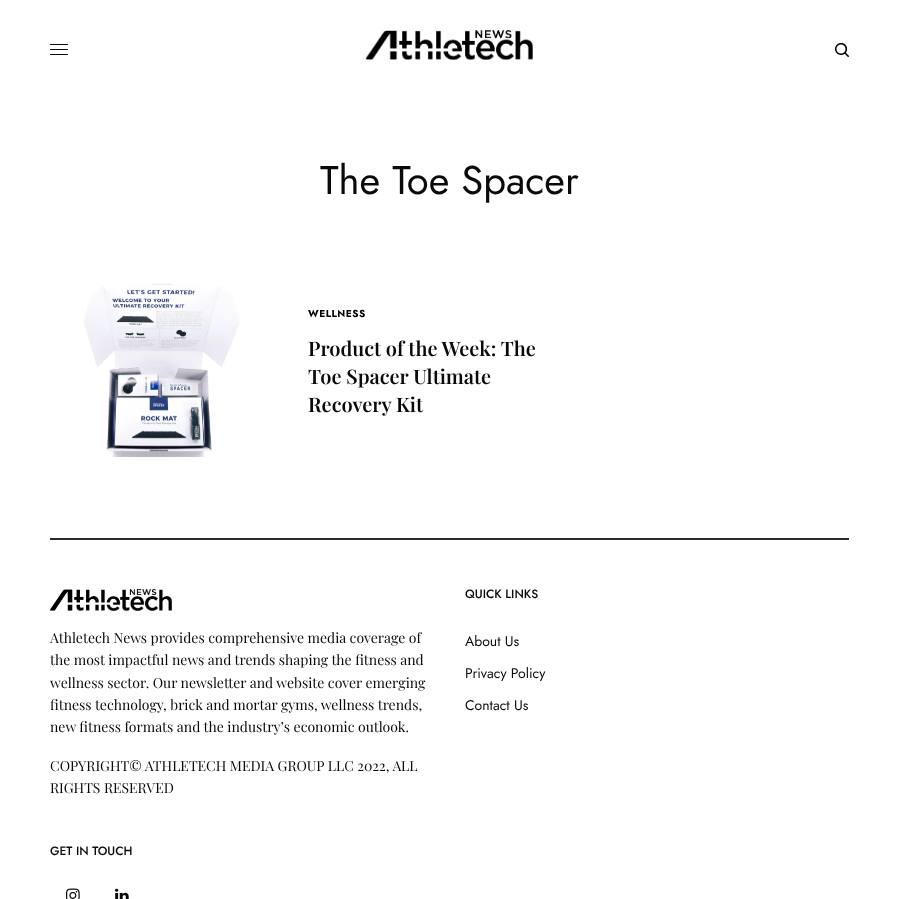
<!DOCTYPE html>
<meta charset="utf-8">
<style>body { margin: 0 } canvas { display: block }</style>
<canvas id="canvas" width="899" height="899"></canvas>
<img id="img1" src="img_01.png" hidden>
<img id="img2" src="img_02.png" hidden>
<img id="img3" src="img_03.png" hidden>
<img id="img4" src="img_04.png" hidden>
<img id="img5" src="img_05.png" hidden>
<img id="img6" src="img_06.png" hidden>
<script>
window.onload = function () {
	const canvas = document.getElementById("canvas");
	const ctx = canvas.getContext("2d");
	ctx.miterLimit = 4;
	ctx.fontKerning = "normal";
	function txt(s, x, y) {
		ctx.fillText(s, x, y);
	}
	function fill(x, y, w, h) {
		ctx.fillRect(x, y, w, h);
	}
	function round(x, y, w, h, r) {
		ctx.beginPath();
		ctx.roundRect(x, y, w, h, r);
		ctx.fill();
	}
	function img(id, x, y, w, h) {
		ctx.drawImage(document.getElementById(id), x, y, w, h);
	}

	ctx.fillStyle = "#FFFFFF";
	fill(0, 0, 899, 899);
	ctx.fillStyle = "#0A0A0A";
	round(50, 44, 18, 1, 0.5);
	round(50, 49, 18, 1, 0.5);
	round(50, 54, 18, 1, 0.5);
	img("img1", 365, 30, 168, 30);
	img("img2", 835, 43, 14, 14);
	img("img3", 50, 280, 218, 177);
	ctx.fillStyle = "#2A2A2A";
	fill(50, 538, 799, 2);
	img("img4", 50, 589, 122, 22);
	img("img5", 66, 888, 14, 11);
	img("img6", 115, 888, 14, 11);
	ctx.font = "40px Jost";
	ctx.fillStyle = "#0A0A0A";
	txt("The Toe Spacer", 320, 194);
	ctx.letterSpacing = "0.5px";
	ctx.font = "bold 10px Jost";
	ctx.fillStyle = "#000000";
	txt("WELLNESS", 308, 317);
	ctx.letterSpacing = "0px";
	ctx.font = "600 20px Playfair Display";
	ctx.fillStyle = "#0A0A0A";
	txt("Product of the Week: The", 308, 356);
	txt("Toe Spacer Ultimate", 308, 384);
	txt("Recovery Kit", 308, 412);
	ctx.font = "14px Playfair Display";
	txt("Athletech News provides comprehensive media coverage of", 50, 643);
	txt("the most impactful news and trends shaping the fitness and", 50, 665);
	txt("wellness sector. Our newsletter and website cover emerging", 50, 688);
	txt("fitness technology, brick and mortar gyms, wellness trends,", 50, 710);
	txt("new fitness formats and the industry’s economic outlook.", 50, 732);
	txt("COPYRIGHT© ATHLETECH MEDIA GROUP LLC 2022, ALL", 50, 771);
	txt("RIGHTS RESERVED", 50, 793);
	ctx.font = "500 12px Jost";
	txt("QUICK LINKS", 465, 598);
	ctx.font = "14px Jost";
	txt("About Us", 465, 646);
	txt("Privacy Policy", 465, 678);
	txt("Contact Us", 465, 710);
	ctx.font = "500 12px Jost";
	txt("GET IN TOUCH", 50, 855);
};
</script>
